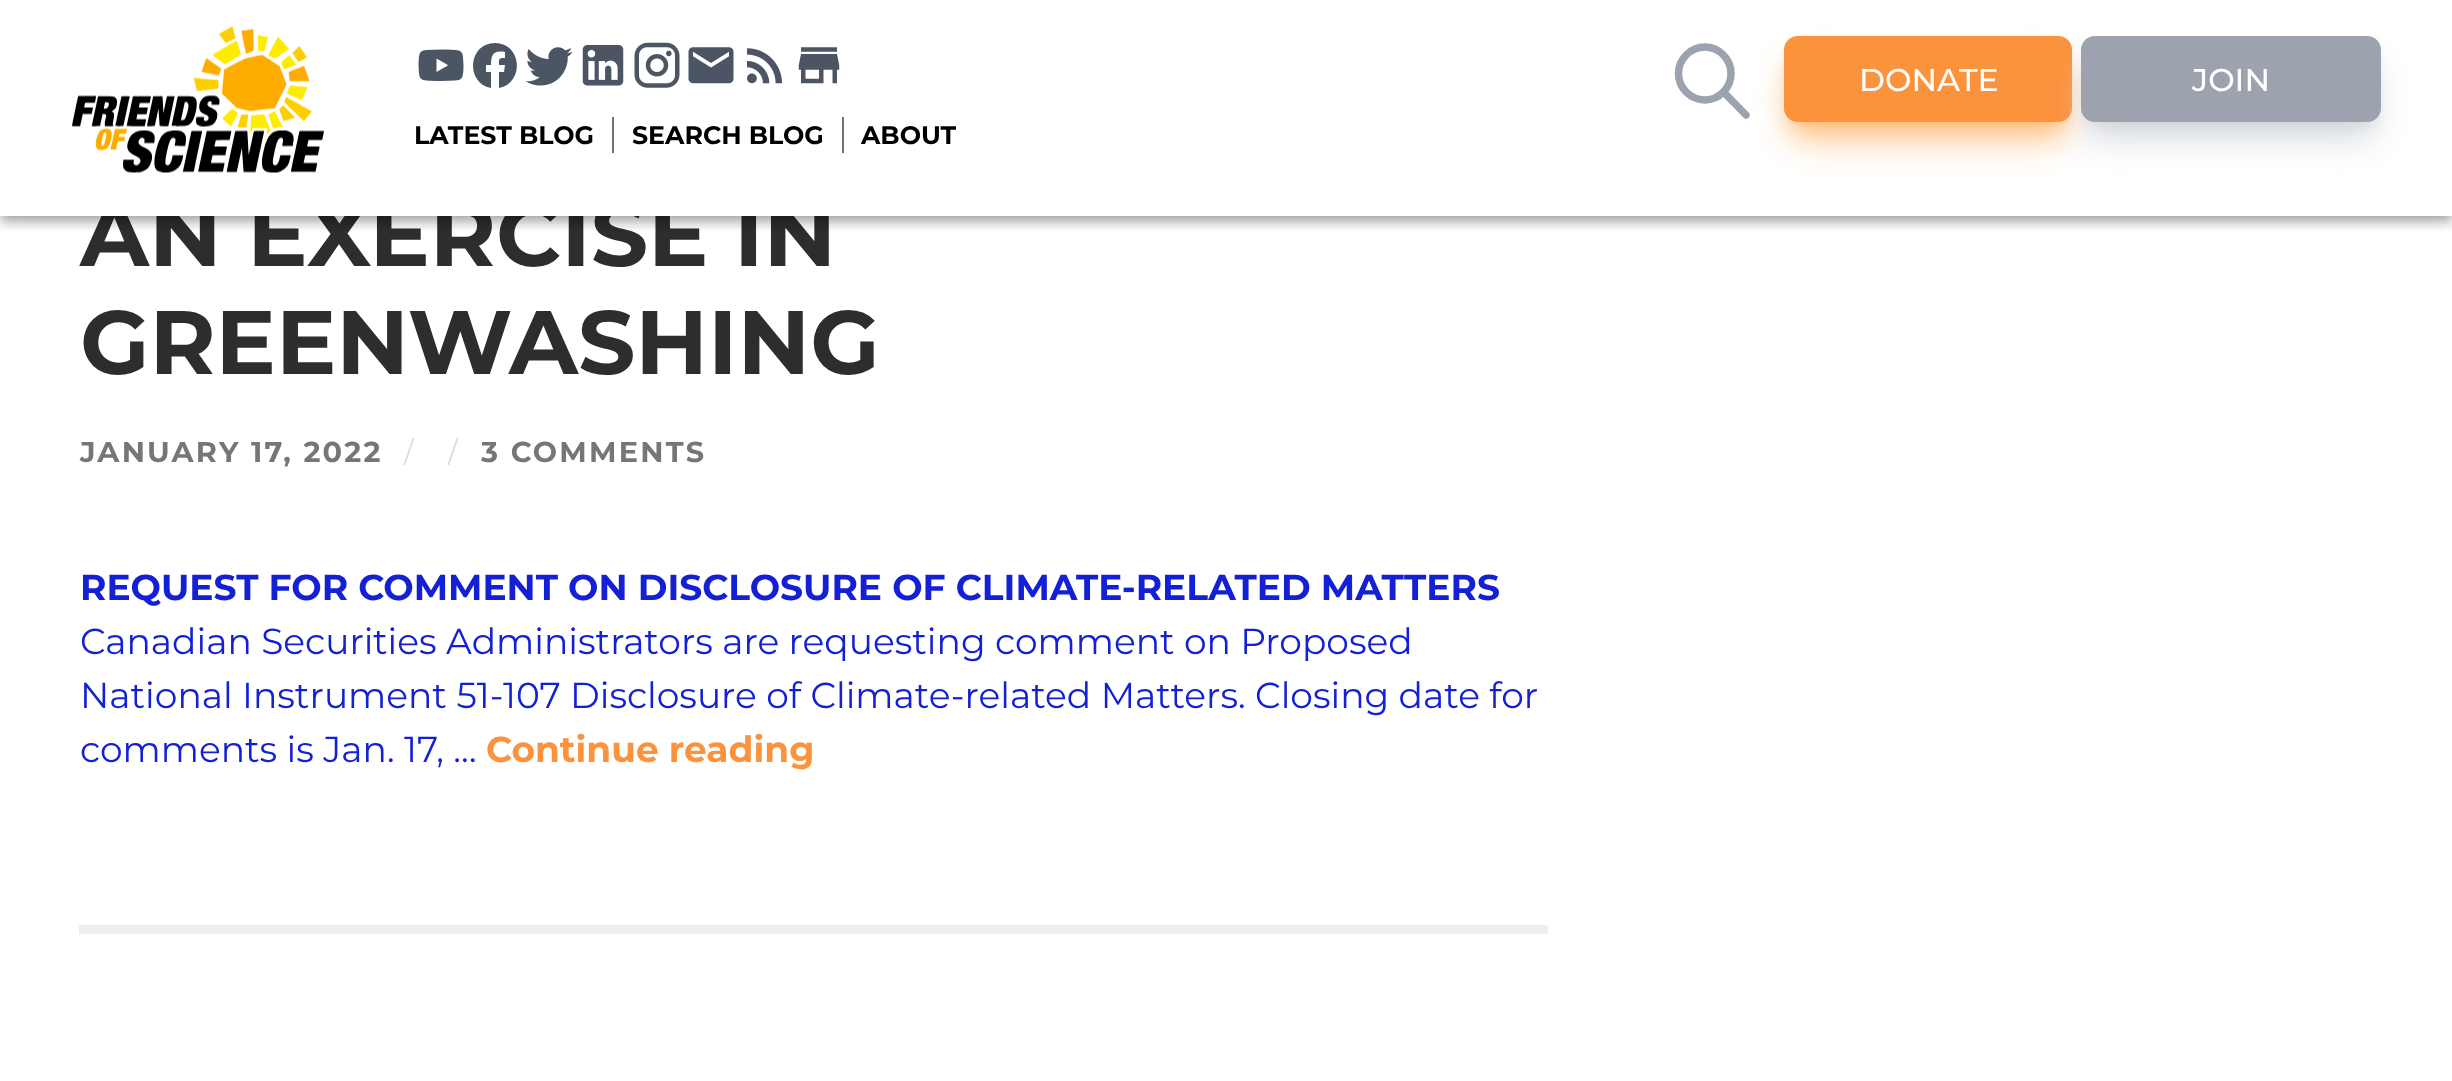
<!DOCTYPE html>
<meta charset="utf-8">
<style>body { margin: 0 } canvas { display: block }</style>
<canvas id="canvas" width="2452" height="1081"></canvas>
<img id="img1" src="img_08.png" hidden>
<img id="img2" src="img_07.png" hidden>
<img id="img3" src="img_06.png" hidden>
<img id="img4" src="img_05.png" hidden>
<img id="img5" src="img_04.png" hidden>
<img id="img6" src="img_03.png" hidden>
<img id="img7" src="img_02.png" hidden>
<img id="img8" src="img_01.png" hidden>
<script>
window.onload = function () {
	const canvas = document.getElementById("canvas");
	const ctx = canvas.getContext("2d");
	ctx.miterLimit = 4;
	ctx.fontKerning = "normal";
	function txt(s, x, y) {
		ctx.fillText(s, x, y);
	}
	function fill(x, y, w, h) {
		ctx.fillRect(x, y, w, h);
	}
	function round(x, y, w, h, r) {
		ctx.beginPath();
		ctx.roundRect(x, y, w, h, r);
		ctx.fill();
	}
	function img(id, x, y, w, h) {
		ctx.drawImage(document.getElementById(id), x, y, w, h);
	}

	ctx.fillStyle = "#FFFFFF";
	fill(0, 0, 2452, 1081);
	ctx.fillStyle = "#FDBA74";
	ctx.filter = "blur(7px)";
	ctx.beginPath();
	ctx.roundRect(1793, 54, 270, 68, 5);
	ctx.fill();
	ctx.filter = "none";
	ctx.filter = "blur(17px)";
	ctx.beginPath();
	ctx.roundRect(1791, 65, 275, 72, 7);
	ctx.fill();
	ctx.filter = "none";
	ctx.fillStyle = "#EEEEEE";
	fill(79, 925, 1469, 9);
	ctx.font = "bold 90px Montserrat";
	ctx.fillStyle = "#2D2D2D";
	txt("AN EXERCISE IN", 80, 266);
	ctx.fillStyle = "#FFFFFF";
	fill(101, 201, 728, 15);
	ctx.save();
	ctx.beginPath();
	ctx.rect(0, 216, 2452, 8);
	ctx.clip();
	ctx.fillStyle = "rgba(0, 0, 0, 0.2)";
	ctx.filter = "blur(4.5px)";
	ctx.beginPath();
	ctx.rect(2, 7, 2448, 211);
	ctx.fill();
	ctx.filter = "none";
	ctx.restore();
	ctx.save();
	ctx.beginPath();
	ctx.rect(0, 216, 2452, 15);
	ctx.clip();
	ctx.fillStyle = "rgba(0, 0, 0, 0.14)";
	ctx.filter = "blur(5.5px)";
	ctx.beginPath();
	ctx.rect(0, 9, 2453, 216);
	ctx.fill();
	ctx.filter = "none";
	ctx.restore();
	ctx.save();
	ctx.beginPath();
	ctx.rect(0, 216, 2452, 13);
	ctx.clip();
	ctx.fillStyle = "rgba(0, 0, 0, 0.12)";
	ctx.filter = "blur(11px)";
	ctx.beginPath();
	ctx.rect(0, 2, 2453, 216);
	ctx.fill();
	ctx.filter = "none";
	ctx.restore();
	ctx.font = "bold 25.25px Montserrat";
	ctx.fillStyle = "#000000";
	txt("ABOUT", 861, 144);
	ctx.fillStyle = "#6B7280";
	fill(842, 117, 2, 36);
	ctx.fillStyle = "#000000";
	txt("SEARCH BLOG", 632, 144);
	ctx.fillStyle = "#6B7280";
	fill(612, 117, 2, 36);
	ctx.fillStyle = "#000000";
	txt("LATEST BLOG", 414, 144);
	ctx.beginPath();
	ctx.moveTo(1746, 115);
	ctx.lineTo(1723.5, 92);
	ctx.moveTo(1731, 73.5);
	ctx.bezierCurveTo(1731, 88, 1719, 100, 1705, 100);
	ctx.bezierCurveTo(1690.5, 100, 1678.5, 88, 1678.5, 73.5);
	ctx.bezierCurveTo(1678.5, 59, 1690.5, 47, 1705, 47);
	ctx.bezierCurveTo(1719, 47, 1731, 59, 1731, 73.5);
	ctx.closePath();
	ctx.strokeStyle = "#9CA3AF";
	ctx.lineWidth = 7.5;
	ctx.lineCap = "round";
	ctx.lineJoin = "round";
	ctx.stroke();
	img("img1", 798, 47, 42, 37);
	img("img2", 747, 48, 35, 36);
	img("img3", 688, 47, 46, 37);
	img("img4", 634, 42, 46, 46);
	img("img5", 582, 45, 42, 41);
	img("img6", 525, 47, 48, 39);
	ctx.fillStyle = "#4B5563";
	ctx.beginPath();
	ctx.moveTo(495, 43);
	ctx.bezierCurveTo(468, 43, 465, 83, 491, 88);
	ctx.lineTo(491, 72);
	ctx.lineTo(486, 72);
	ctx.lineTo(486, 65);
	ctx.lineTo(491, 65);
	ctx.bezierCurveTo(491, 55, 493, 50, 505, 52);
	ctx.lineTo(505, 58);
	ctx.bezierCurveTo(498, 58, 499, 59, 499, 65);
	ctx.lineTo(505, 65);
	ctx.lineTo(504, 72);
	ctx.lineTo(499, 72);
	ctx.lineTo(499, 88);
	ctx.bezierCurveTo(525, 83, 522, 43, 495, 43);
	ctx.closePath();
	ctx.fill();
	img("img7", 418, 49, 46, 32);
	img("img8", 72, 26, 252, 147);
	ctx.fillStyle = "#FB923C";
	round(1784, 36, 288, 86, 14);
	ctx.fillStyle = "#D1D5DB";
	ctx.filter = "blur(17px)";
	ctx.beginPath();
	ctx.roundRect(2088, 65, 286, 72, 7);
	ctx.fill();
	ctx.filter = "none";
	ctx.filter = "blur(7px)";
	ctx.beginPath();
	ctx.roundRect(2090, 54, 282, 68, 5);
	ctx.fill();
	ctx.filter = "none";
	ctx.fillStyle = "#9CA3AF";
	round(2081, 36, 300, 86, 14);
	ctx.font = "500 31.5px Montserrat";
	ctx.fillStyle = "#FFFFFF";
	txt("JOIN", 2192, 91);
	txt("DONATE", 1859, 91);
	ctx.font = "bold 90px Montserrat";
	ctx.fillStyle = "#2D2D2D";
	txt("GREENWASHING", 80, 374);
	ctx.letterSpacing = "2.25px";
	ctx.font = "bold 28.75px Montserrat";
	ctx.fillStyle = "#767676";
	txt("JANUARY 17, 2022", 80, 462);
	ctx.font = "28.75px Montserrat";
	ctx.fillStyle = "#DDDDDD";
	txt("/", 404, 462);
	txt("/", 448, 462);
	ctx.font = "bold 28.75px Montserrat";
	ctx.fillStyle = "#767676";
	txt("3 COMMENTS", 481, 462);
	ctx.letterSpacing = "0px";
	ctx.font = "bold 36px Montserrat";
	ctx.fillStyle = "#1320D5";
	txt("REQUEST FOR COMMENT ON DISCLOSURE OF CLIMATE-RELATED MATTERS", 80, 600);
	ctx.font = "36px Montserrat";
	txt("Canadian Securities Administrators are requesting comment on Proposed", 80, 654);
	txt("National Instrument 51-107 Disclosure of Climate-related Matters. Closing date for", 80, 708);
	txt("comments is Jan. 17, …", 80, 762);
	ctx.font = "bold 36px Montserrat";
	ctx.fillStyle = "#FC923C";
	txt("Continue reading", 486, 762);
};
</script>
